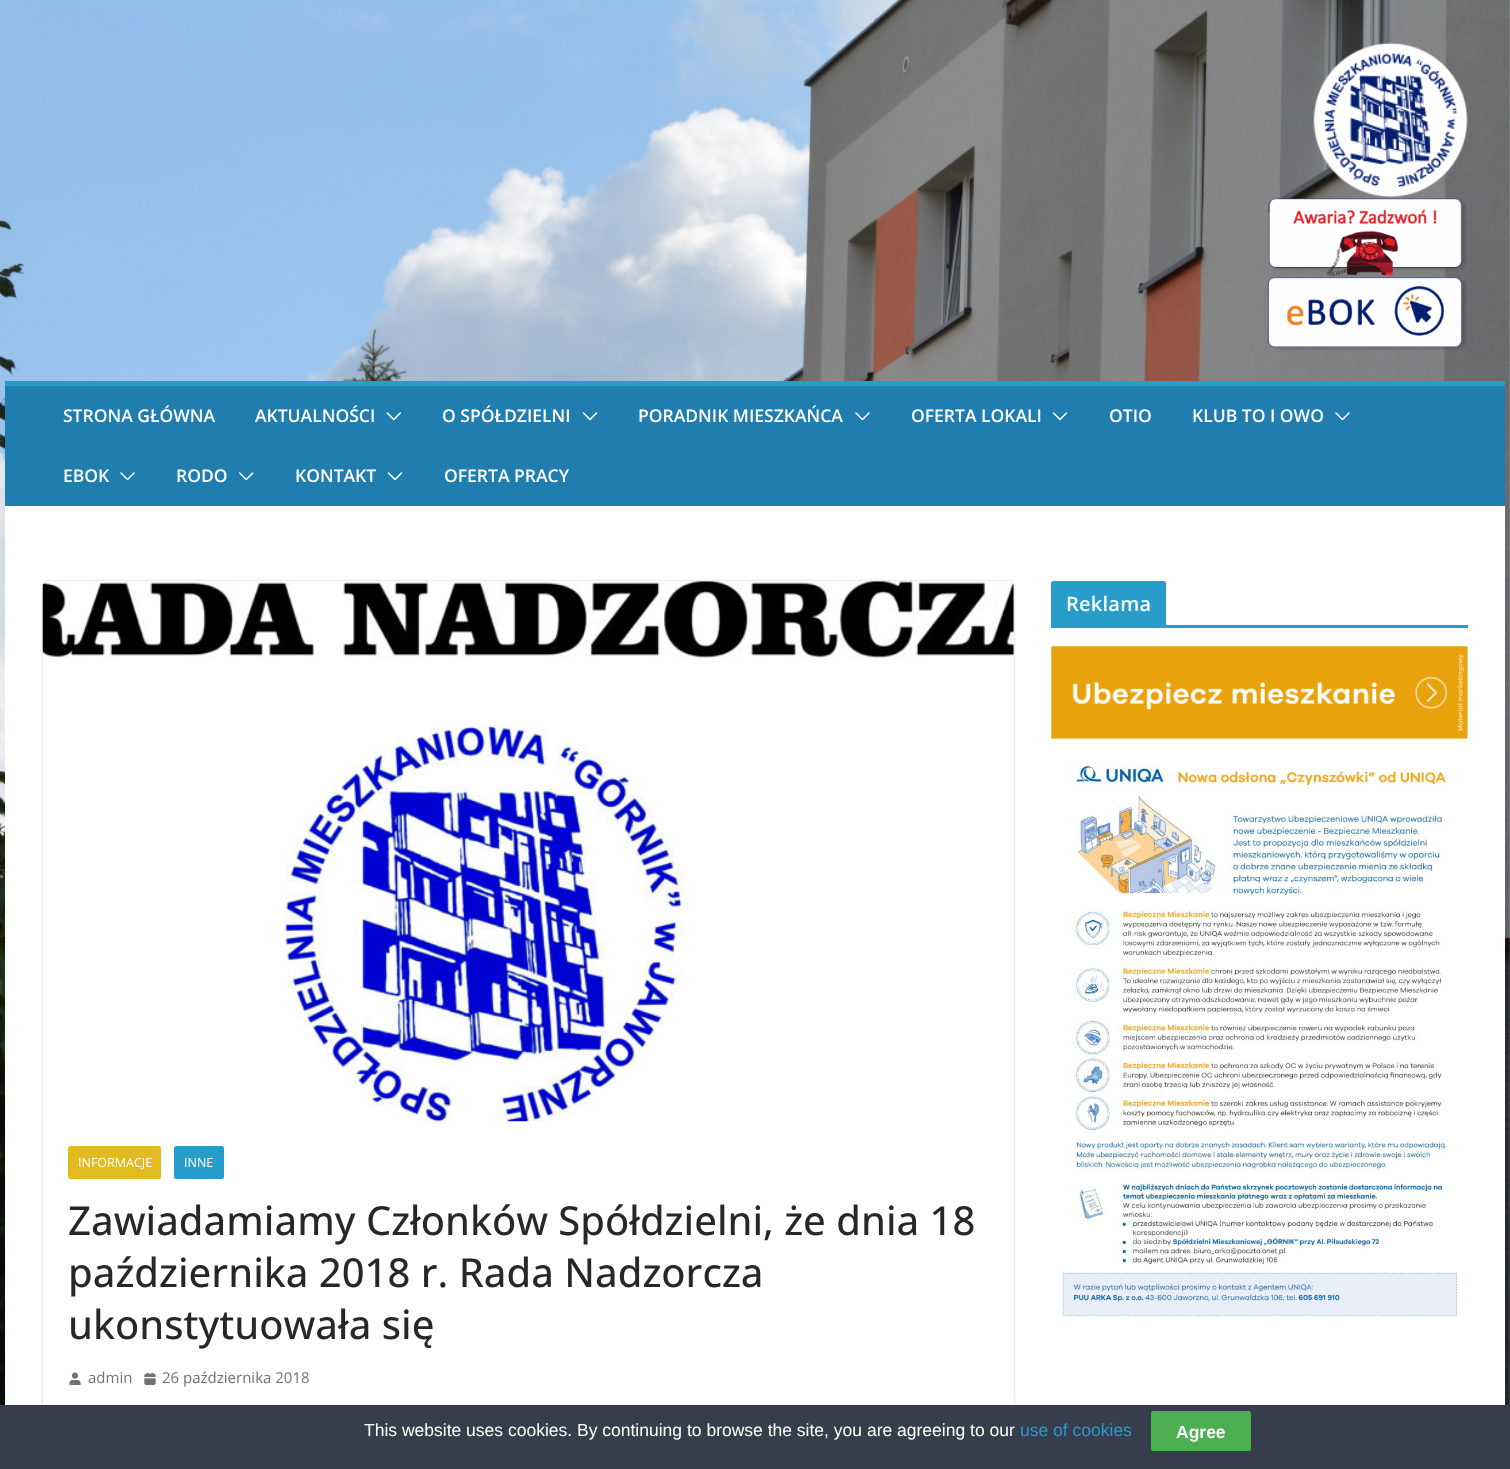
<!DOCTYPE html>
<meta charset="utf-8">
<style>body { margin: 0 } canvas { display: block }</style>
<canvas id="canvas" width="1510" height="1469"></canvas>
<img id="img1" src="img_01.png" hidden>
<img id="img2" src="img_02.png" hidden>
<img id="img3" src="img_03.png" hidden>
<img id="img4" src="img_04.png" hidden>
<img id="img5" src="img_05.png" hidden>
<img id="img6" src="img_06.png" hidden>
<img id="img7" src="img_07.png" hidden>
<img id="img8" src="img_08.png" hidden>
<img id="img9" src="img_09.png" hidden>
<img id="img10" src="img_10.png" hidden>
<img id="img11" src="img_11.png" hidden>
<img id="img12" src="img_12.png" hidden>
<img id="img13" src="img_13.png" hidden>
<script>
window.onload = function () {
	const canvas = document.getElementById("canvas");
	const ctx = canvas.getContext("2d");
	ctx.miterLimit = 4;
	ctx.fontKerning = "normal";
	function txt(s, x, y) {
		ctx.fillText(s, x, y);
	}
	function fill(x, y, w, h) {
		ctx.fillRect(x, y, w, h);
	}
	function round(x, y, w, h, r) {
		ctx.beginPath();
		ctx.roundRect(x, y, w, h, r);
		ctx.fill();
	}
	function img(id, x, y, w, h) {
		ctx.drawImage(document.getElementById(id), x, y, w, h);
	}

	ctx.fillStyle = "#FFFFFF";
	fill(0, 0, 1510, 1469);
	img("img1", 0, 0, 1510, 1405);
	img("img2", 1313, 42, 155, 156);
	img("img3", 1268, 198, 199, 79);
	img("img4", 1267, 277, 200, 74);
	ctx.fillStyle = "#207DAF";
	fill(5, 386, 1500, 120);
	ctx.fillStyle = "#289DCC";
	fill(5, 381, 1500, 5);
	img("img5", 386, 412, 15, 9);
	img("img6", 582, 412, 16, 9);
	img("img7", 855, 412, 15, 9);
	img("img6", 1052, 412, 16, 9);
	img("img7", 1335, 412, 15, 9);
	img("img7", 120, 472, 15, 9);
	img("img8", 239, 472, 15, 9);
	img("img6", 387, 472, 16, 9);
	ctx.fillStyle = "#FFFFFF";
	fill(5, 506, 1500, 899);
	ctx.fillStyle = "#289DCC";
	fill(1051, 625, 417, 3);
	ctx.beginPath();
	ctx.roundRect(1051, 581, 115, 44, [2.5, 2.5, 0, 0]);
	ctx.fill();
	img("img9", 1051, 646, 417, 93);
	img("img10", 1051, 738, 417, 580);
	ctx.save();
	ctx.beginPath();
	ctx.moveTo(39, 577);
	ctx.lineTo(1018, 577);
	ctx.lineTo(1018, 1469);
	ctx.lineTo(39, 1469);
	ctx.closePath();
	ctx.moveTo(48, 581);
	ctx.lineTo(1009, 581);
	ctx.bezierCurveTo(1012, 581, 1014, 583, 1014, 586);
	ctx.lineTo(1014, 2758);
	ctx.bezierCurveTo(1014, 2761, 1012, 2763, 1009, 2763);
	ctx.lineTo(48, 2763);
	ctx.bezierCurveTo(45, 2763, 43, 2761, 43, 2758);
	ctx.lineTo(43, 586);
	ctx.bezierCurveTo(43, 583, 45, 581, 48, 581);
	ctx.closePath();
	ctx.clip("evenodd");
	ctx.fillStyle = "rgba(0, 0, 0, 0.24)";
	ctx.filter = "blur(1px)";
	ctx.beginPath();
	ctx.roundRect(43, 581, 971, 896, 5);
	ctx.fill();
	ctx.filter = "none";
	ctx.restore();
	img("img11", 42, 581, 972, 541);
	ctx.fillStyle = "#E2BB1F";
	round(68, 1146, 93, 33, 2.5);
	ctx.fillStyle = "#289DCC";
	round(174, 1146, 50, 33, 2.5);
	img("img12", 69, 1372, 12, 13);
	img("img13", 144, 1372, 12, 13);
	ctx.fillStyle = "#363D4D";
	fill(0, 1405, 1510, 64);
	ctx.fillStyle = "#4CAF50";
	round(1151, 1411, 100, 40, 2.5);
	ctx.font = "600 17.5px Open Sans";
	ctx.fillStyle = "#FFFFFF";
	txt("STRONA GŁÓWNA", 63, 422);
	txt("AKTUALNOŚCI", 255, 422);
	txt("O SPÓŁDZIELNI", 442, 422);
	txt("PORADNIK MIESZKAŃCA", 638, 422);
	txt("OFERTA LOKALI", 911, 422);
	txt("OTIO", 1109, 422);
	txt("KLUB TO I OWO", 1192, 422);
	txt("EBOK", 63, 482);
	txt("RODO", 176, 482);
	txt("KONTAKT", 295, 482);
	txt("OFERTA PRACY", 444, 482);
	ctx.letterSpacing = "0.25px";
	ctx.font = "600 20px Open Sans";
	txt("Reklama", 1066, 611);
	ctx.letterSpacing = "0px";
	ctx.font = "12.5px Open Sans";
	txt("INFORMACJE", 78, 1167);
	txt("INNE", 184, 1167);
	ctx.font = "500 40px Open Sans";
	ctx.fillStyle = "#27272A";
	txt("Zawiadamiamy Członków Spółdzielni, że dnia 18", 68, 1235);
	txt("października 2018 r. Rada Nadzorcza", 68, 1287);
	txt("ukonstytuowała się", 68, 1339);
	ctx.font = "15px Open Sans";
	ctx.fillStyle = "#71717A";
	txt("admin", 88, 1383);
	txt("26 października 2018", 162, 1383);
	ctx.font = "17.5px Liberation Sans";
	ctx.fillStyle = "#FFFFFF";
	txt("This website uses cookies. By continuing to browse the site, you are agreeing to our", 364, 1436);
	ctx.fillStyle = "#289DCC";
	txt("use of cookies", 1020, 1436);
	ctx.font = "bold 17.5px Liberation Sans";
	ctx.fillStyle = "#FFFFFF";
	txt("Agree", 1176, 1438);
};
</script>
